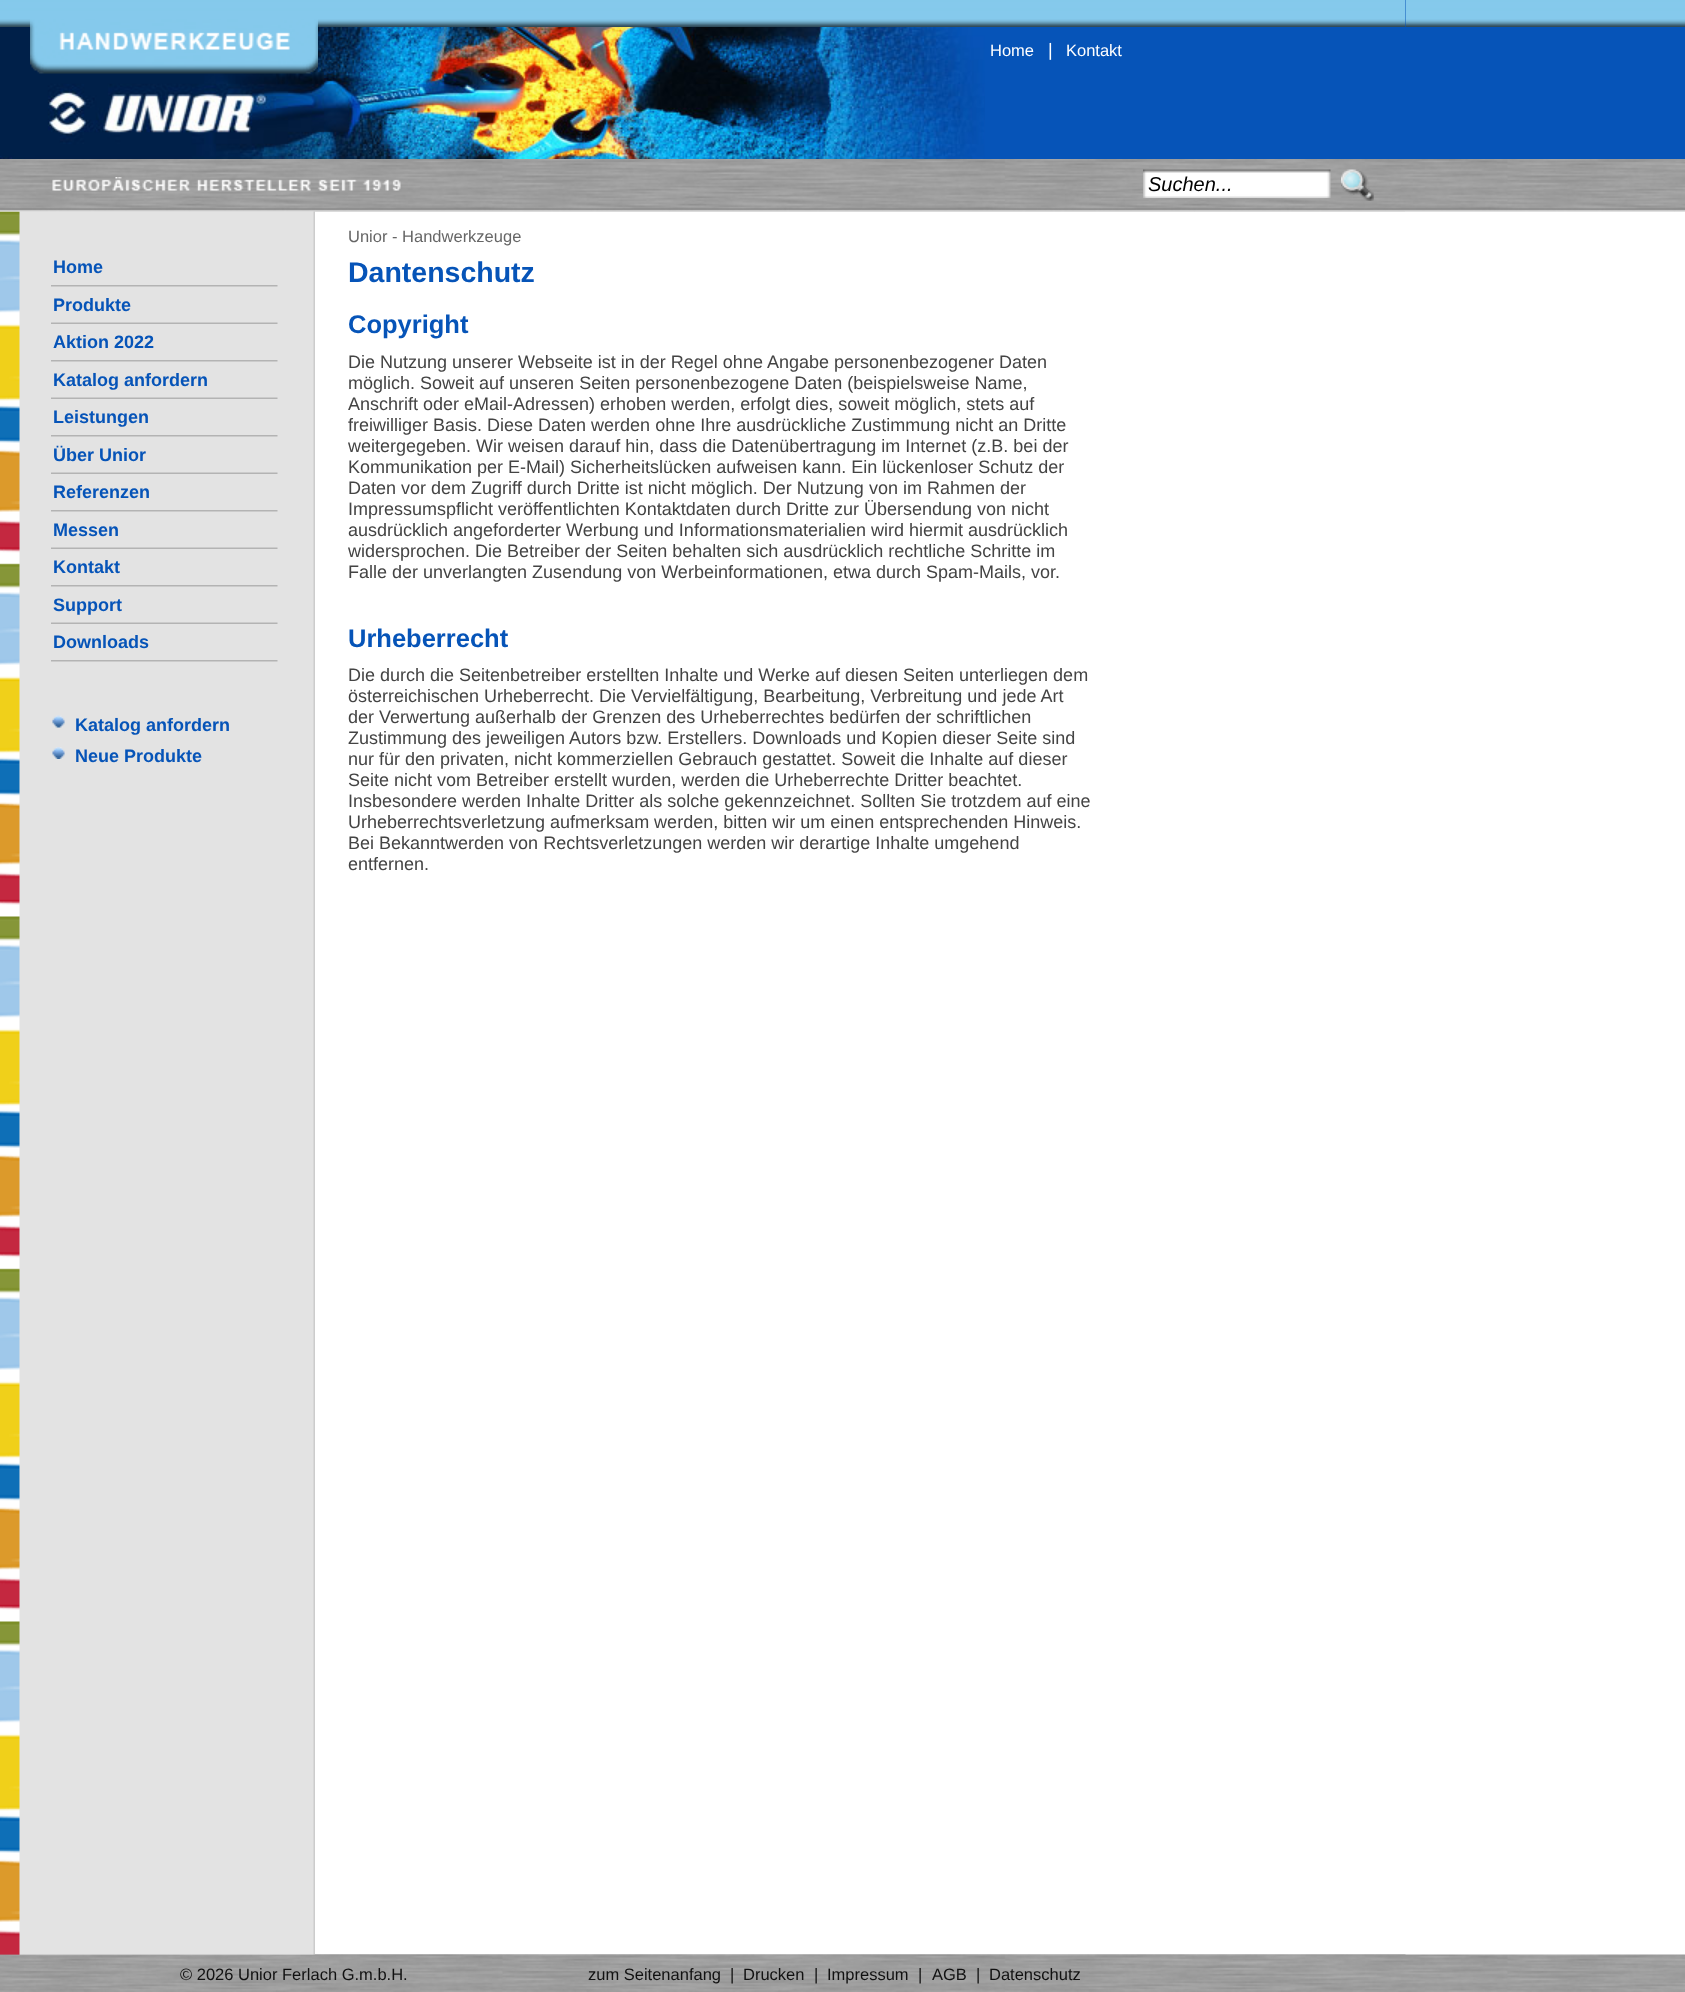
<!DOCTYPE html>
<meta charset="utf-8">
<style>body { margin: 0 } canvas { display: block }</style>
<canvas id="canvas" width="1685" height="1992"></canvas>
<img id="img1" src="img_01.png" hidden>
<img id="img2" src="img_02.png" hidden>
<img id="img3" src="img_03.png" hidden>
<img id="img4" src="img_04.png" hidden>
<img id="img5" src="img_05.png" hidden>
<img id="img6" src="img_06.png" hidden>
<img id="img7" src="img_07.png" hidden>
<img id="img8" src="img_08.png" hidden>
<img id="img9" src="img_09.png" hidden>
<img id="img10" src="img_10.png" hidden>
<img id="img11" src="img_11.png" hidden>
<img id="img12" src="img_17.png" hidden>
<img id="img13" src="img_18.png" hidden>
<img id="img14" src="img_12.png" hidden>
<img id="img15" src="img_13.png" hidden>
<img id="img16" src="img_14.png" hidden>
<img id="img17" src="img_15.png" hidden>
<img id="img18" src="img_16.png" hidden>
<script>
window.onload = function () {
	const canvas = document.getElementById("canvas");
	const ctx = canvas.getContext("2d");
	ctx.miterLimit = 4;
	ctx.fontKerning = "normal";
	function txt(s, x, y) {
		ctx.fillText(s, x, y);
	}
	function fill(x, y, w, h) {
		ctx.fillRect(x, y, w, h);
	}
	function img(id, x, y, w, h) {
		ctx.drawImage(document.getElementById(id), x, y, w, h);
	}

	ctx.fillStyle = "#FFFFFF";
	fill(0, 0, 1685, 1992);
	img("img1", 0, 211, 315, 1744);
	ctx.fillStyle = "#0654B8";
	fill(1406, 27, 279, 132);
	img("img2", 1406, 0, 279, 27);
	fill(985, 0, 421, 159);
	img("img3", 0, 27, 985, 132);
	img("img4", 0, 0, 1406, 27);
	img("img5", 30, 19, 288, 55);
	img("img6", 0, 159, 1685, 53);
	img("img7", 0, 211, 1685, 1);
	img("img8", 0, 211, 1405, 1);
	img("img9", 52, 177, 349, 14);
	img("img10", 1143, 169, 188, 29);
	img("img11", 1341, 169, 33, 32);
	img("img12", 0, 1954, 1685, 38);
	img("img13", 0, 1954, 1406, 1);
	img("img14", 0, 211, 315, 1744);
	img("img15", 51, 285, 227, 2);
	img("img16", 51, 322, 227, 2);
	img("img15", 51, 360, 227, 2);
	img("img16", 51, 397, 227, 2);
	img("img15", 51, 435, 227, 2);
	img("img16", 51, 472, 227, 2);
	img("img15", 51, 510, 227, 2);
	img("img16", 51, 547, 227, 2);
	img("img15", 51, 585, 227, 2);
	img("img16", 51, 622, 227, 2);
	img("img15", 51, 660, 227, 2);
	img("img17", 52, 715, 13, 13);
	img("img18", 52, 747, 13, 12);
	ctx.font = "16.5px Liberation Sans";
	ctx.fillStyle = "#FFFFFF";
	txt("Home", 990, 56);
	ctx.font = "18px Liberation Sans";
	txt("|", 1048, 56);
	ctx.font = "16.5px Liberation Sans";
	txt("Kontakt", 1066, 56);
	ctx.font = "italic 20px Liberation Sans";
	ctx.fillStyle = "#000000";
	txt("Suchen...", 1148, 191);
	ctx.font = "bold 18px Liberation Sans";
	ctx.fillStyle = "#0654B8";
	txt("Home", 53, 273);
	txt("Produkte", 53, 311);
	txt("Aktion 2022", 53, 348);
	txt("Katalog anfordern", 53, 386);
	txt("Leistungen", 53, 423);
	txt("Über Unior", 53, 461);
	txt("Referenzen", 53, 498);
	txt("Messen", 53, 536);
	txt("Kontakt", 53, 573);
	txt("Support", 53, 611);
	txt("Downloads", 53, 648);
	txt("Katalog anfordern", 75, 731);
	txt("Neue Produkte", 75, 762);
	ctx.font = "16.5px Liberation Sans";
	ctx.fillStyle = "#666666";
	txt("Unior - Handwerkzeuge", 348, 242);
	ctx.font = "bold 28.5px Liberation Sans";
	ctx.fillStyle = "#0654B8";
	txt("Dantenschutz", 348, 282);
	ctx.font = "bold 25.5px Liberation Sans";
	txt("Copyright", 348, 333);
	ctx.font = "18px Liberation Sans";
	ctx.fillStyle = "#444444";
	txt("Die Nutzung unserer Webseite ist in der Regel ohne Angabe personenbezogener Daten", 348, 368);
	txt("möglich. Soweit auf unseren Seiten personenbezogene Daten (beispielsweise Name,", 348, 389);
	txt("Anschrift oder eMail-Adressen) erhoben werden, erfolgt dies, soweit möglich, stets auf", 348, 410);
	txt("freiwilliger Basis. Diese Daten werden ohne Ihre ausdrückliche Zustimmung nicht an Dritte", 348, 431);
	txt("weitergegeben. Wir weisen darauf hin, dass die Datenübertragung im Internet (z.B. bei der", 348, 452);
	txt("Kommunikation per E-Mail) Sicherheitslücken aufweisen kann. Ein lückenloser Schutz der", 348, 473);
	txt("Daten vor dem Zugriff durch Dritte ist nicht möglich. Der Nutzung von im Rahmen der", 348, 494);
	txt("Impressumspflicht veröffentlichten Kontaktdaten durch Dritte zur Übersendung von nicht", 348, 515);
	txt("ausdrücklich angeforderter Werbung und Informationsmaterialien wird hiermit ausdrücklich", 348, 536);
	txt("widersprochen. Die Betreiber der Seiten behalten sich ausdrücklich rechtliche Schritte im", 348, 557);
	txt("Falle der unverlangten Zusendung von Werbeinformationen, etwa durch Spam-Mails, vor.", 348, 578);
	ctx.font = "bold 25.5px Liberation Sans";
	ctx.fillStyle = "#0654B8";
	txt("Urheberrecht", 348, 647);
	ctx.font = "18px Liberation Sans";
	ctx.fillStyle = "#444444";
	txt("Die durch die Seitenbetreiber erstellten Inhalte und Werke auf diesen Seiten unterliegen dem", 348, 681);
	txt("österreichischen Urheberrecht. Die Vervielfältigung, Bearbeitung, Verbreitung und jede Art", 348, 702);
	txt("der Verwertung außerhalb der Grenzen des Urheberrechtes bedürfen der schriftlichen", 348, 723);
	txt("Zustimmung des jeweiligen Autors bzw. Erstellers. Downloads und Kopien dieser Seite sind", 348, 744);
	txt("nur für den privaten, nicht kommerziellen Gebrauch gestattet. Soweit die Inhalte auf dieser", 348, 765);
	txt("Seite nicht vom Betreiber erstellt wurden, werden die Urheberrechte Dritter beachtet.", 348, 786);
	txt("Insbesondere werden Inhalte Dritter als solche gekennzeichnet. Sollten Sie trotzdem auf eine", 348, 807);
	txt("Urheberrechtsverletzung aufmerksam werden, bitten wir um einen entsprechenden Hinweis.", 348, 828);
	txt("Bei Bekanntwerden von Rechtsverletzungen werden wir derartige Inhalte umgehend", 348, 849);
	txt("entfernen.", 348, 870);
	ctx.font = "16.5px Liberation Sans";
	ctx.fillStyle = "#111111";
	txt("© 2026 Unior Ferlach G.m.b.H.", 180, 1980);
	txt("zum Seitenanfang", 588, 1980);
	txt("|", 730, 1980);
	txt("Drucken", 743, 1980);
	txt("|", 814, 1980);
	txt("Impressum", 827, 1980);
	txt("|", 918, 1980);
	txt("AGB", 932, 1980);
	txt("|", 976, 1980);
	txt("Datenschutz", 989, 1980);
};
</script>
